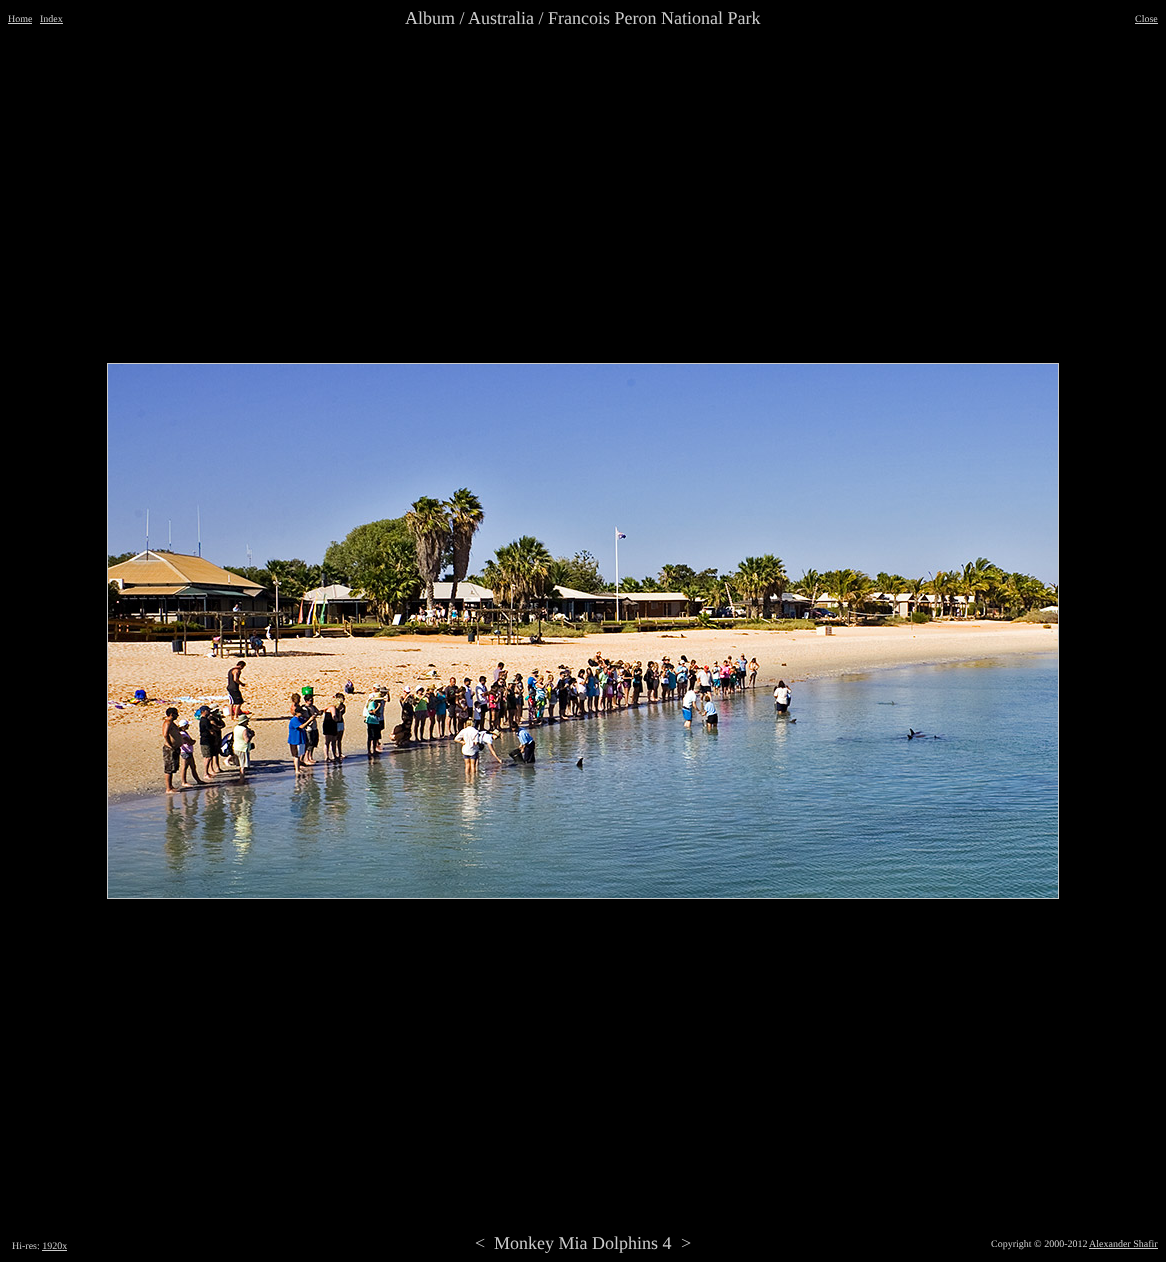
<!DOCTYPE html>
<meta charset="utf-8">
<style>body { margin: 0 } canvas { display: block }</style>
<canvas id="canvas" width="1166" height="1262"></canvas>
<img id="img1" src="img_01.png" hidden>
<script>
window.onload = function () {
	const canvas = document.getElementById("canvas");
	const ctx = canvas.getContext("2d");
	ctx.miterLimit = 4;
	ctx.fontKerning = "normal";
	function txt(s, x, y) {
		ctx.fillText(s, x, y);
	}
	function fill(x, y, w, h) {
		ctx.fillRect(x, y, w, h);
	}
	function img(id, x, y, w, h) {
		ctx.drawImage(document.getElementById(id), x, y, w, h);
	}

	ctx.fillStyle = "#000000";
	fill(0, 0, 1166, 1262);
	ctx.fillStyle = "#CCCCCC";
	fill(8, 23, 24, 1);
	fill(40, 23, 23, 1);
	fill(1135, 23, 23, 1);
	ctx.strokeStyle = "#CCCCCC";
	ctx.strokeRect(107.5, 363.5, 951, 535);
	img("img1", 108, 364, 950, 534);
	fill(42, 1250, 25, 1);
	fill(1089, 1248, 69, 1);
	ctx.font = "10px Liberation Serif";
	txt("Home", 8, 22);
	txt("Index", 40, 22);
	ctx.font = "18px Liberation Serif";
	txt("Album / Australia / Francois Peron National Park", 405, 24);
	ctx.font = "10px Liberation Serif";
	txt("Close", 1135, 22);
	txt("Hi-res: 1920x", 12, 1249);
	ctx.font = "18px Liberation Serif";
	txt("<", 475, 1249);
	txt("Monkey Mia Dolphins 4", 494, 1249);
	txt(">", 681, 1249);
	ctx.font = "10px Liberation Serif";
	txt("Copyright © 2000-2012", 991, 1247);
	txt("Alexander Shafir", 1089, 1247);
};
</script>
